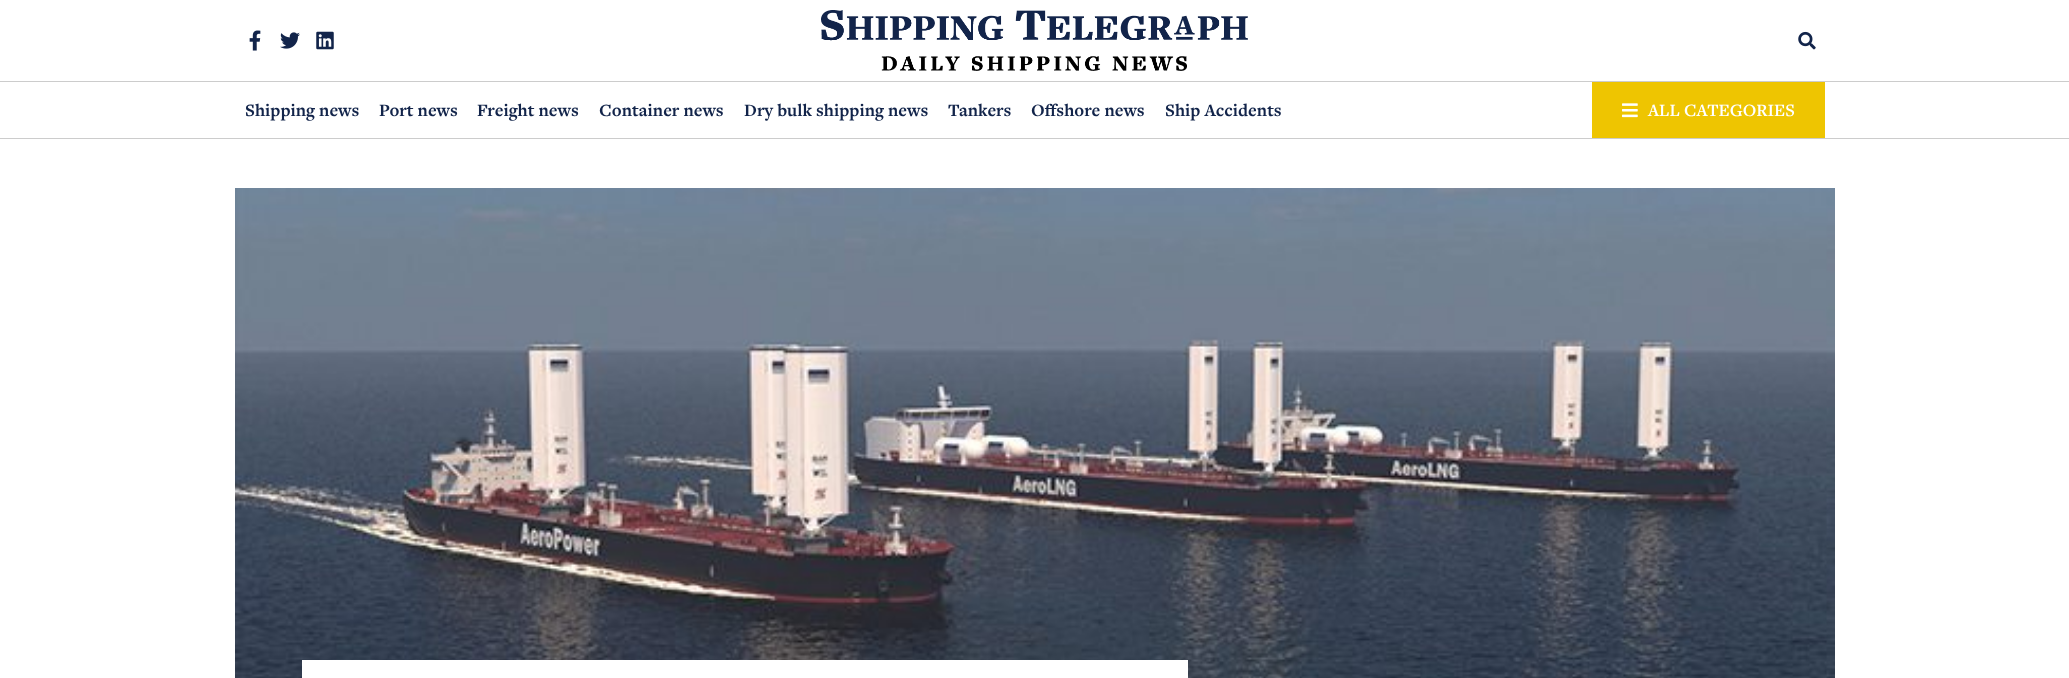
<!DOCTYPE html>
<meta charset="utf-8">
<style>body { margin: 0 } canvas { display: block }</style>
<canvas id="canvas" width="2069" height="678"></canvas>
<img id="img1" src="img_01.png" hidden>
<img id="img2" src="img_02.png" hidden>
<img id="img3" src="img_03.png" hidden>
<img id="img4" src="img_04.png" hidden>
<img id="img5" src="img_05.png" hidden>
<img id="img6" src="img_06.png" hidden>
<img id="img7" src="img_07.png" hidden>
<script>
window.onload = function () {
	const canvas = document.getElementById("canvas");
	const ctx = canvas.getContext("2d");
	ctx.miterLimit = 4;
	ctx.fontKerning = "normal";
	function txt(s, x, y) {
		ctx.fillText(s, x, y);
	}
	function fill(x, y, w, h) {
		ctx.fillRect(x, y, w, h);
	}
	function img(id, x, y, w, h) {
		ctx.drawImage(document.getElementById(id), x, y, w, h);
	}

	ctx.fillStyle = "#FFFFFF";
	fill(0, 0, 2069, 678);
	ctx.fillStyle = "#CCCCCC";
	fill(0, 81, 2069, 1);
	img("img1", 249, 30, 12, 21);
	img("img2", 280, 32, 20, 17);
	img("img3", 316, 31, 18, 19);
	img("img4", 821, 10, 427, 61);
	img("img5", 1798, 31, 18, 19);
	fill(0, 138, 2069, 1);
	ctx.fillStyle = "#EEC501";
	fill(1592, 82, 233, 56);
	img("img6", 1622, 103, 16, 15);
	img("img7", 235, 188, 1600, 490);
	ctx.fillStyle = "#FFFFFF";
	fill(302, 660, 886, 18);
	ctx.font = "bold 18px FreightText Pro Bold";
	ctx.fillStyle = "#12244A";
	txt("Shipping news", 245, 116);
	txt("Port news", 379, 116);
	txt("Freight news", 477, 116);
	txt("Container news", 599, 116);
	txt("Dry bulk shipping news", 744, 116);
	txt("Tankers", 948, 116);
	txt("Offshore news", 1031, 116);
	txt("Ship Accidents", 1165, 116);
	ctx.font = "600 18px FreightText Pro";
	ctx.fillStyle = "#FFFFFF";
	txt("ALL CATEGORIES", 1648, 116);
};
</script>
